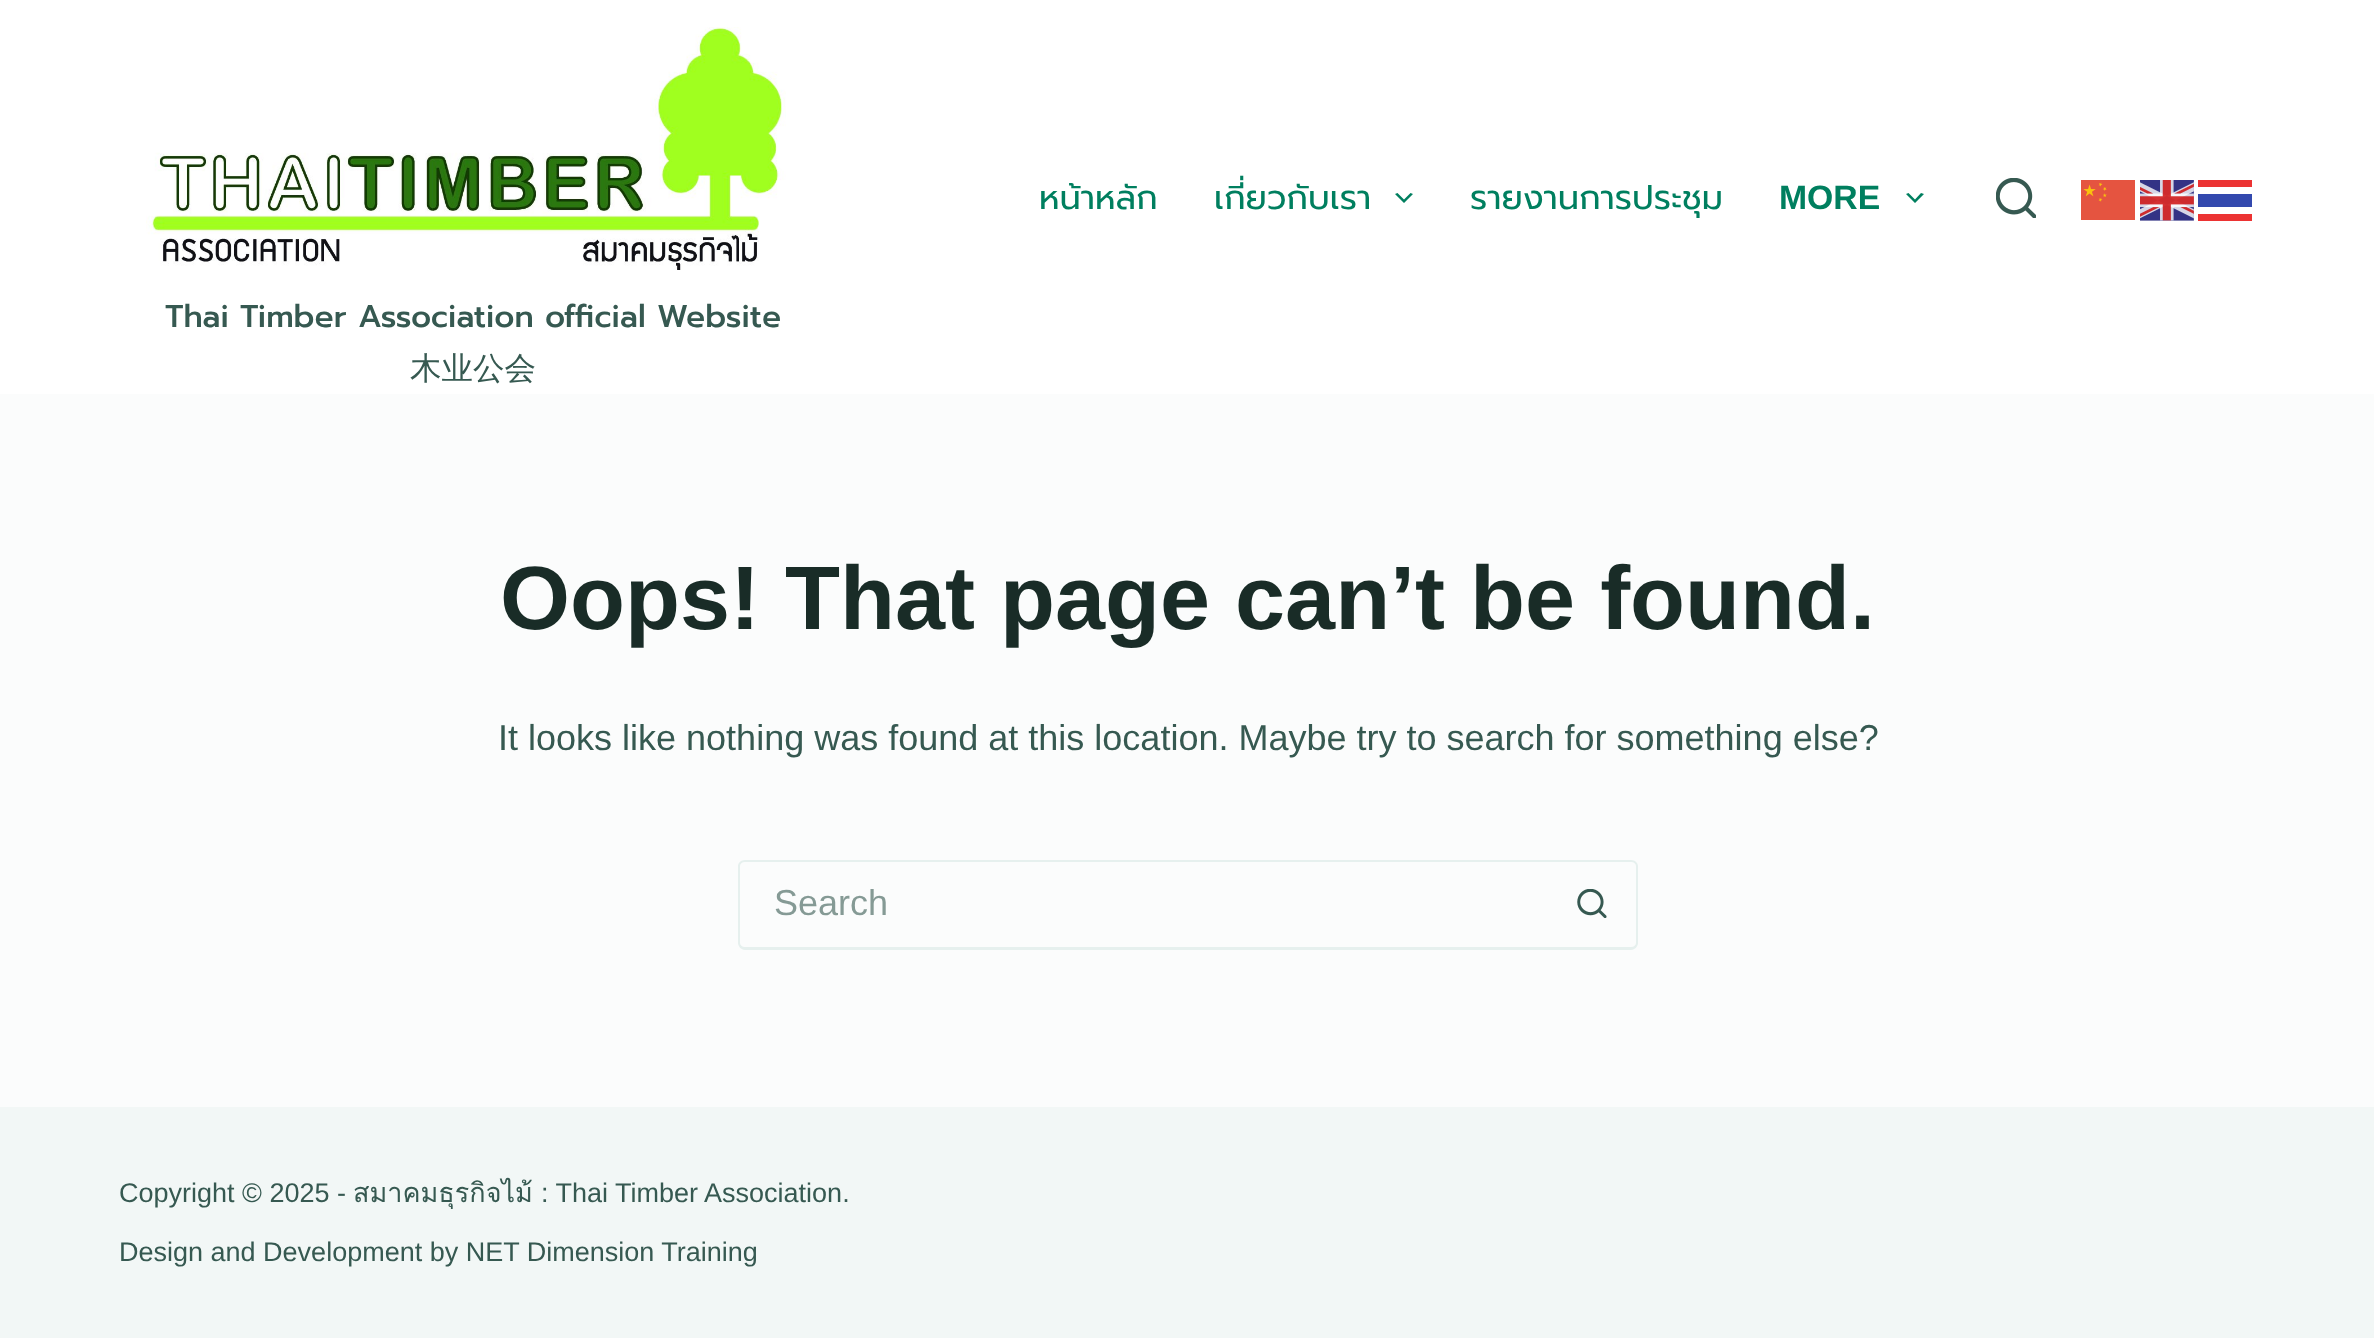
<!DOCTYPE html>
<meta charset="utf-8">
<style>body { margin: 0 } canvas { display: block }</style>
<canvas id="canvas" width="2374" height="1338"></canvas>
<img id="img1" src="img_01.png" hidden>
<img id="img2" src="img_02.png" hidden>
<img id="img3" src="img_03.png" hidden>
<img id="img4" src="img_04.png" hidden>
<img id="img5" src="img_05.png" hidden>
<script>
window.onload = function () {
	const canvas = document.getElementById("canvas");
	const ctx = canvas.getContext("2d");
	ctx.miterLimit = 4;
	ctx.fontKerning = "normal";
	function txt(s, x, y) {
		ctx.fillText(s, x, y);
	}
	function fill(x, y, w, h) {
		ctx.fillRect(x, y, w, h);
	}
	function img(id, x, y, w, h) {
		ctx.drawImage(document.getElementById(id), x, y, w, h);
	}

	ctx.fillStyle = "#FBFCFC";
	fill(0, 0, 2374, 1338);
	ctx.fillStyle = "#FFFFFF";
	fill(0, 0, 2374, 394);
	ctx.fillStyle = "#007F5F";
	ctx.beginPath();
	ctx.moveTo(1397.5, 193);
	ctx.lineTo(1404, 199.5);
	ctx.lineTo(1410.5, 193);
	ctx.lineTo(1413, 194);
	ctx.lineTo(1404, 203);
	ctx.lineTo(1395, 194);
	ctx.closePath();
	ctx.fill();
	ctx.beginPath();
	ctx.moveTo(1908.5, 193);
	ctx.lineTo(1915, 199.5);
	ctx.lineTo(1921, 193);
	ctx.lineTo(1924, 194);
	ctx.lineTo(1915, 203);
	ctx.lineTo(1906, 194);
	ctx.closePath();
	ctx.fill();
	img("img1", 1996, 178, 40, 40);
	img("img2", 2081, 180, 54, 40);
	img("img3", 2140, 180, 54, 41);
	ctx.fillStyle = "#3349AE";
	fill(2198, 194, 54, 13);
	ctx.fillStyle = "#EC3333";
	ctx.beginPath();
	ctx.moveTo(2198, 180);
	ctx.lineTo(2252, 180);
	ctx.lineTo(2252, 187);
	ctx.lineTo(2198, 187);
	ctx.closePath();
	ctx.moveTo(2198, 214);
	ctx.lineTo(2252, 214);
	ctx.lineTo(2252, 221);
	ctx.lineTo(2198, 221);
	ctx.closePath();
	ctx.fill("evenodd");
	img("img4", 146, 27, 640, 243);
	ctx.fillStyle = "#E6F0EE";
	ctx.beginPath();
	ctx.moveTo(745, 860);
	ctx.lineTo(1548, 860);
	ctx.lineTo(1548, 950);
	ctx.lineTo(745, 950);
	ctx.bezierCurveTo(741, 950, 738, 946, 738, 943);
	ctx.lineTo(738, 866);
	ctx.bezierCurveTo(738, 863, 741, 860, 745, 860);
	ctx.closePath();
	ctx.moveTo(745, 862);
	ctx.lineTo(1548, 862);
	ctx.lineTo(1548, 947);
	ctx.lineTo(745, 947);
	ctx.bezierCurveTo(742, 947, 740, 945, 740, 943);
	ctx.lineTo(740, 866);
	ctx.bezierCurveTo(740, 864, 742, 862, 745, 862);
	ctx.closePath();
	ctx.fill("evenodd");
	ctx.beginPath();
	ctx.moveTo(1548, 860);
	ctx.lineTo(1631, 860);
	ctx.bezierCurveTo(1635, 860, 1638, 863, 1638, 866);
	ctx.lineTo(1638, 943);
	ctx.bezierCurveTo(1638, 946, 1635, 950, 1631, 950);
	ctx.lineTo(1548, 950);
	ctx.closePath();
	ctx.moveTo(1548, 862);
	ctx.lineTo(1631, 862);
	ctx.bezierCurveTo(1634, 862, 1636, 864, 1636, 866);
	ctx.lineTo(1636, 943);
	ctx.bezierCurveTo(1636, 945, 1634, 947, 1631, 947);
	ctx.lineTo(1548, 947);
	ctx.closePath();
	ctx.fill("evenodd");
	img("img5", 1577, 889, 30, 29);
	ctx.fillStyle = "#F2F7F6";
	fill(0, 1107, 2374, 231);
	ctx.font = "33.75px Prompt";
	ctx.fillStyle = "#007F5F";
	txt("หน้าหลัก", 1039, 209);
	txt("เกี่ยวกับเรา", 1214, 209);
	txt("รายงานการประชุม", 1470, 209);
	ctx.font = "bold 33.75px Liberation Sans";
	txt("MORE", 1779, 209);
	ctx.font = "500 31.5px Prompt";
	ctx.fillStyle = "#365951";
	txt("Thai Timber Association official Website", 165, 327);
	ctx.font = "500 31.5px WenQuanYi Zen Hei";
	txt("木业公会", 410, 379);
	ctx.font = "bold 90px Liberation Sans";
	ctx.fillStyle = "#192C27";
	txt("Oops! That page can’t be found.", 500, 629);
	ctx.font = "36px Liberation Sans";
	ctx.fillStyle = "#365951";
	txt("It looks like nothing was found at this location. Maybe try to search for something else?", 498, 750);
	ctx.fillStyle = "#859A95";
	txt("Search", 774, 915);
	ctx.font = "27px Liberation Sans";
	ctx.fillStyle = "#365951";
	txt("Copyright © 2025 -", 119, 1202);
	ctx.font = "27px Loma";
	txt("สมาคมธุรกิจไม้", 353, 1202);
	ctx.font = "27px Liberation Sans";
	txt(": Thai Timber Association.", 541, 1202);
	txt("Design and Development by NET Dimension Training", 119, 1261);
};
</script>
